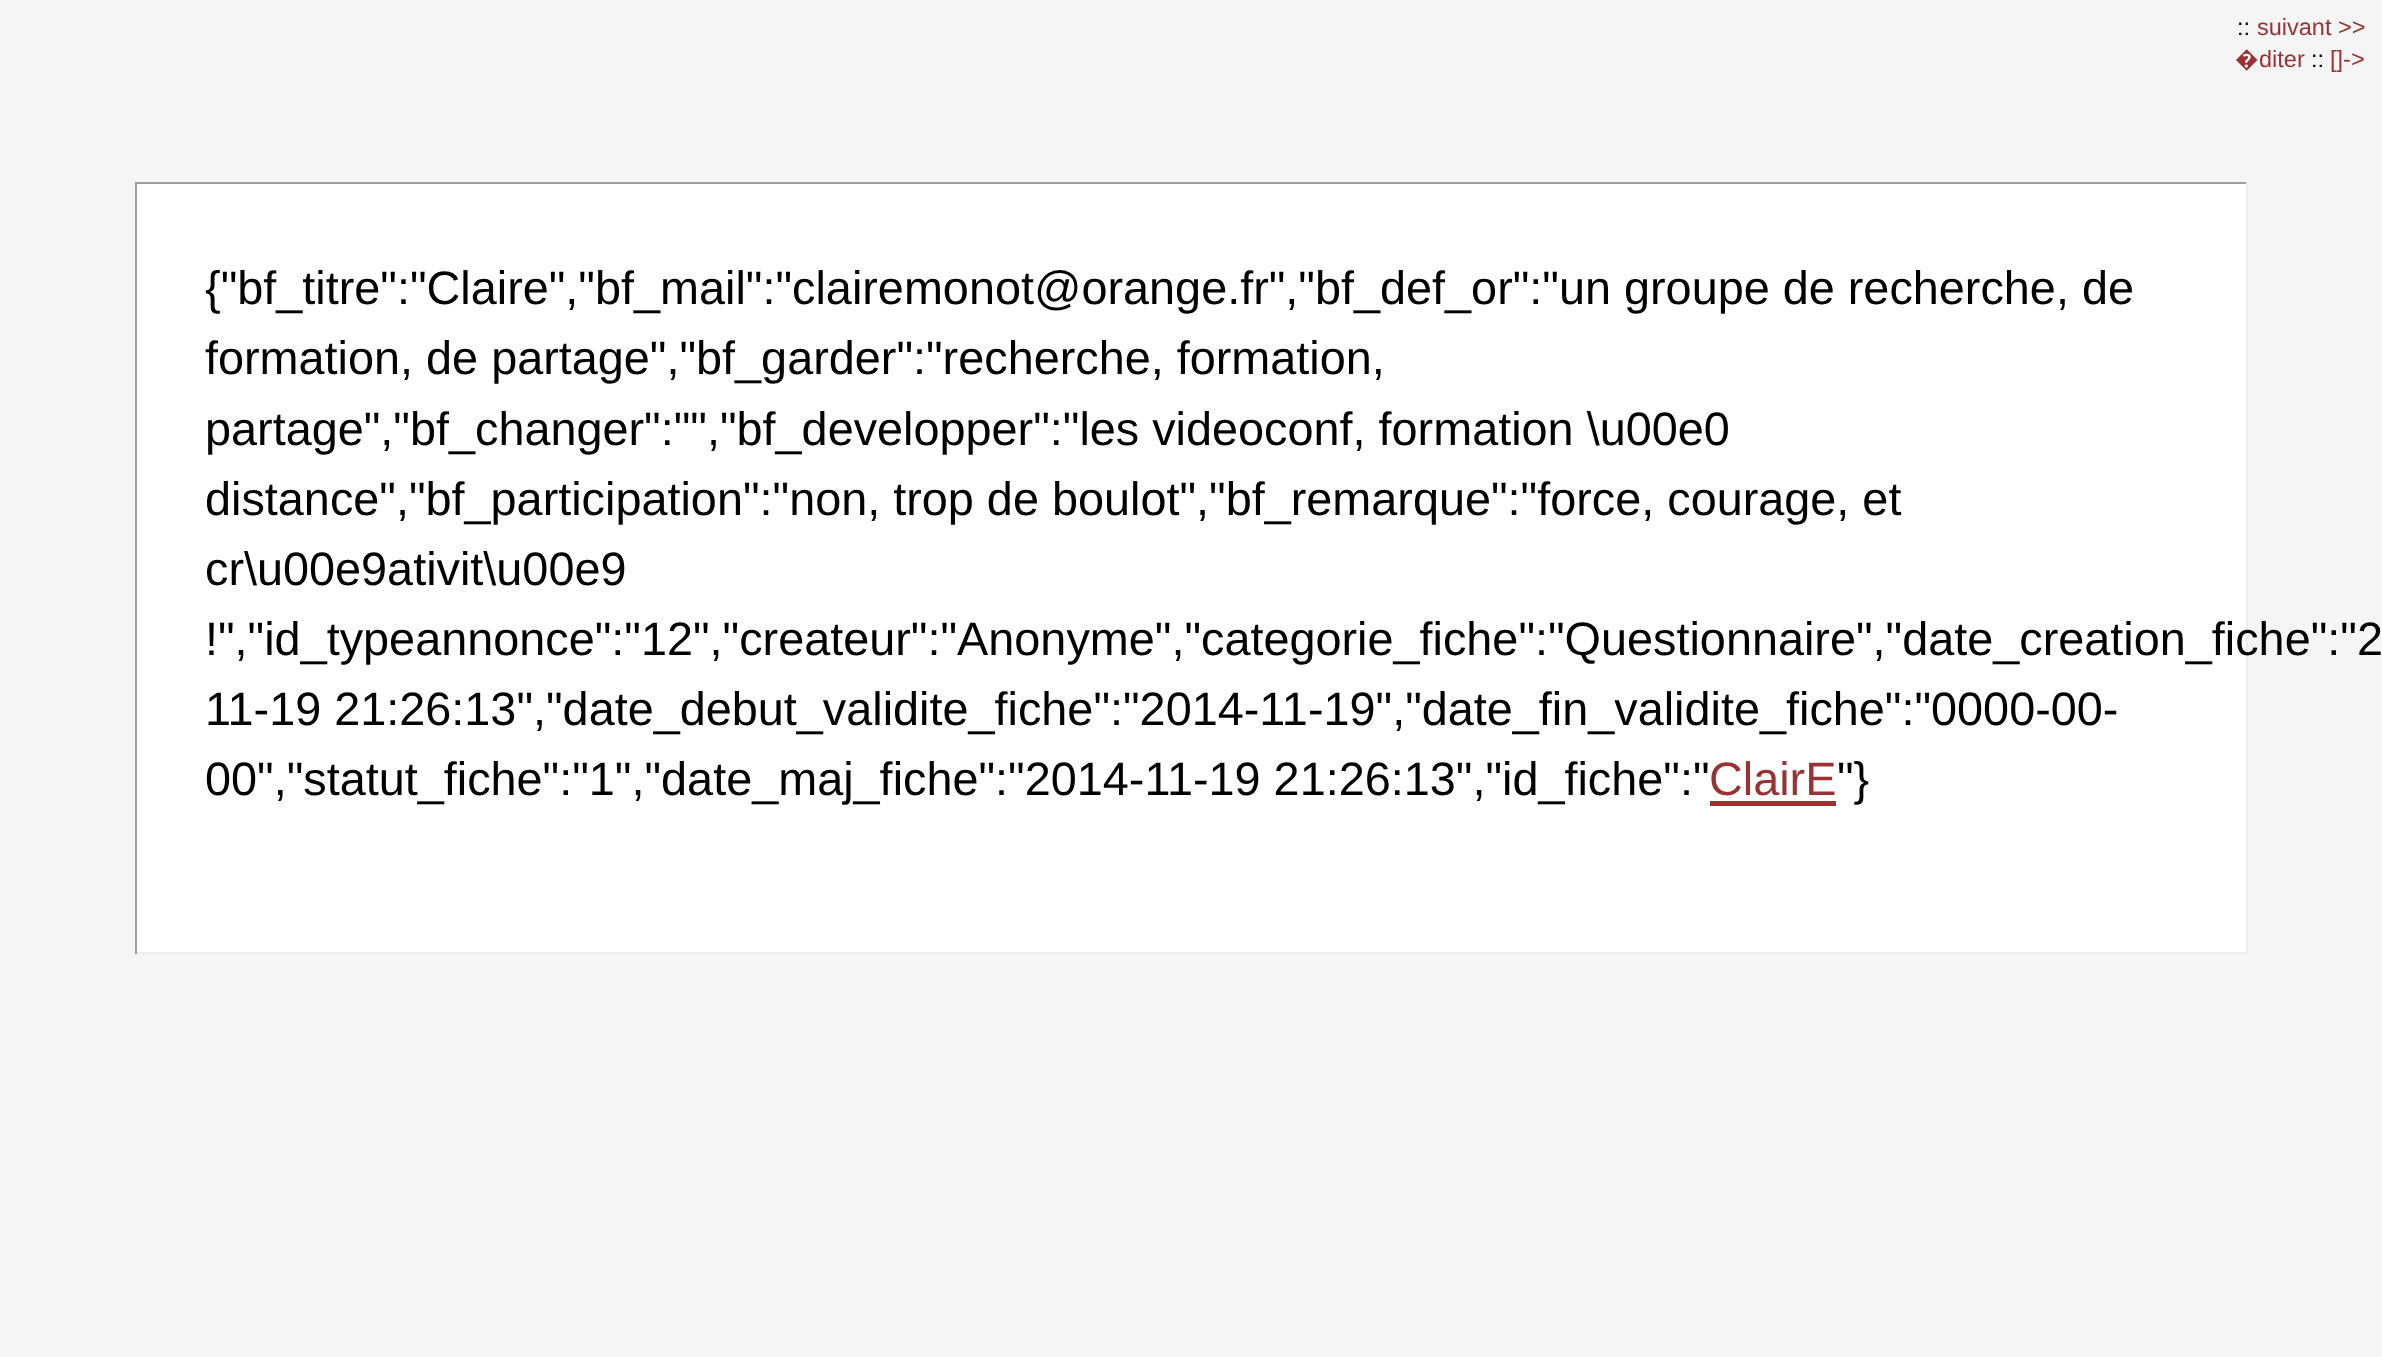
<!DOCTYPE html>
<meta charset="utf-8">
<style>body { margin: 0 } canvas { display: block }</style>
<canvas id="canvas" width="2382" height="1357"></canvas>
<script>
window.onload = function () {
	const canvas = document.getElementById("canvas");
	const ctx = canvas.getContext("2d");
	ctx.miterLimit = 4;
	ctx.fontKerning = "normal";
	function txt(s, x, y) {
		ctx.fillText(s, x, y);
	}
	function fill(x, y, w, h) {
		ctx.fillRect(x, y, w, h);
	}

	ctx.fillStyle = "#F5F5F5";
	fill(0, 0, 2382, 1357);
	ctx.fillStyle = "#FFFFFF";
	fill(137, 184, 2109, 768);
	ctx.fillStyle = "#9F9F9F";
	fill(135, 182, 2113, 2);
	ctx.fillStyle = "#EEEEEE";
	fill(2246, 182, 2, 772);
	fill(135, 952, 2113, 2);
	ctx.fillStyle = "#9F9F9F";
	fill(135, 182, 2, 772);
	ctx.fillStyle = "#993333";
	fill(1710, 801, 126, 5);
	ctx.font = "23.5px Liberation Sans";
	ctx.fillStyle = "#000000";
	txt("::", 2237, 35);
	ctx.fillStyle = "#993333";
	txt("suivant >>", 2257, 35);
	ctx.font = "23.5px Noto Sans";
	txt("�", 2235, 67);
	ctx.font = "23.5px Liberation Sans";
	txt("diter", 2259, 67);
	ctx.fillStyle = "#000000";
	txt("::", 2311, 67);
	ctx.fillStyle = "#993333";
	txt("[]->", 2330, 67);
	ctx.font = "46.8px Liberation Sans";
	ctx.fillStyle = "#000000";
	txt("{\"bf_titre\":\"Claire\",\"bf_mail\":\"clairemonot@orange.fr\",\"bf_def_or\":\"un groupe de recherche, de", 205, 304);
	txt("formation, de partage\",\"bf_garder\":\"recherche, formation,", 205, 374);
	txt("partage\",\"bf_changer\":\"\",\"bf_developper\":\"les videoconf, formation \\u00e0", 205, 445);
	txt("distance\",\"bf_participation\":\"non, trop de boulot\",\"bf_remarque\":\"force, courage, et", 205, 515);
	txt("cr\\u00e9ativit\\u00e9", 205, 585);
	txt("!\",\"id_typeannonce\":\"12\",\"createur\":\"Anonyme\",\"categorie_fiche\":\"Questionnaire\",\"date_creation_fiche\":\"2", 205, 655);
	txt("11-19 21:26:13\",\"date_debut_validite_fiche\":\"2014-11-19\",\"date_fin_validite_fiche\":\"0000-00-", 205, 725);
	txt("00\",\"statut_fiche\":\"1\",\"date_maj_fiche\":\"2014-11-19 21:26:13\",\"id_fiche\":\"", 205, 795);
	ctx.fillStyle = "#993333";
	txt("ClairE", 1709, 795);
	ctx.fillStyle = "#000000";
	txt("\"}", 1837, 795);
};
</script>
